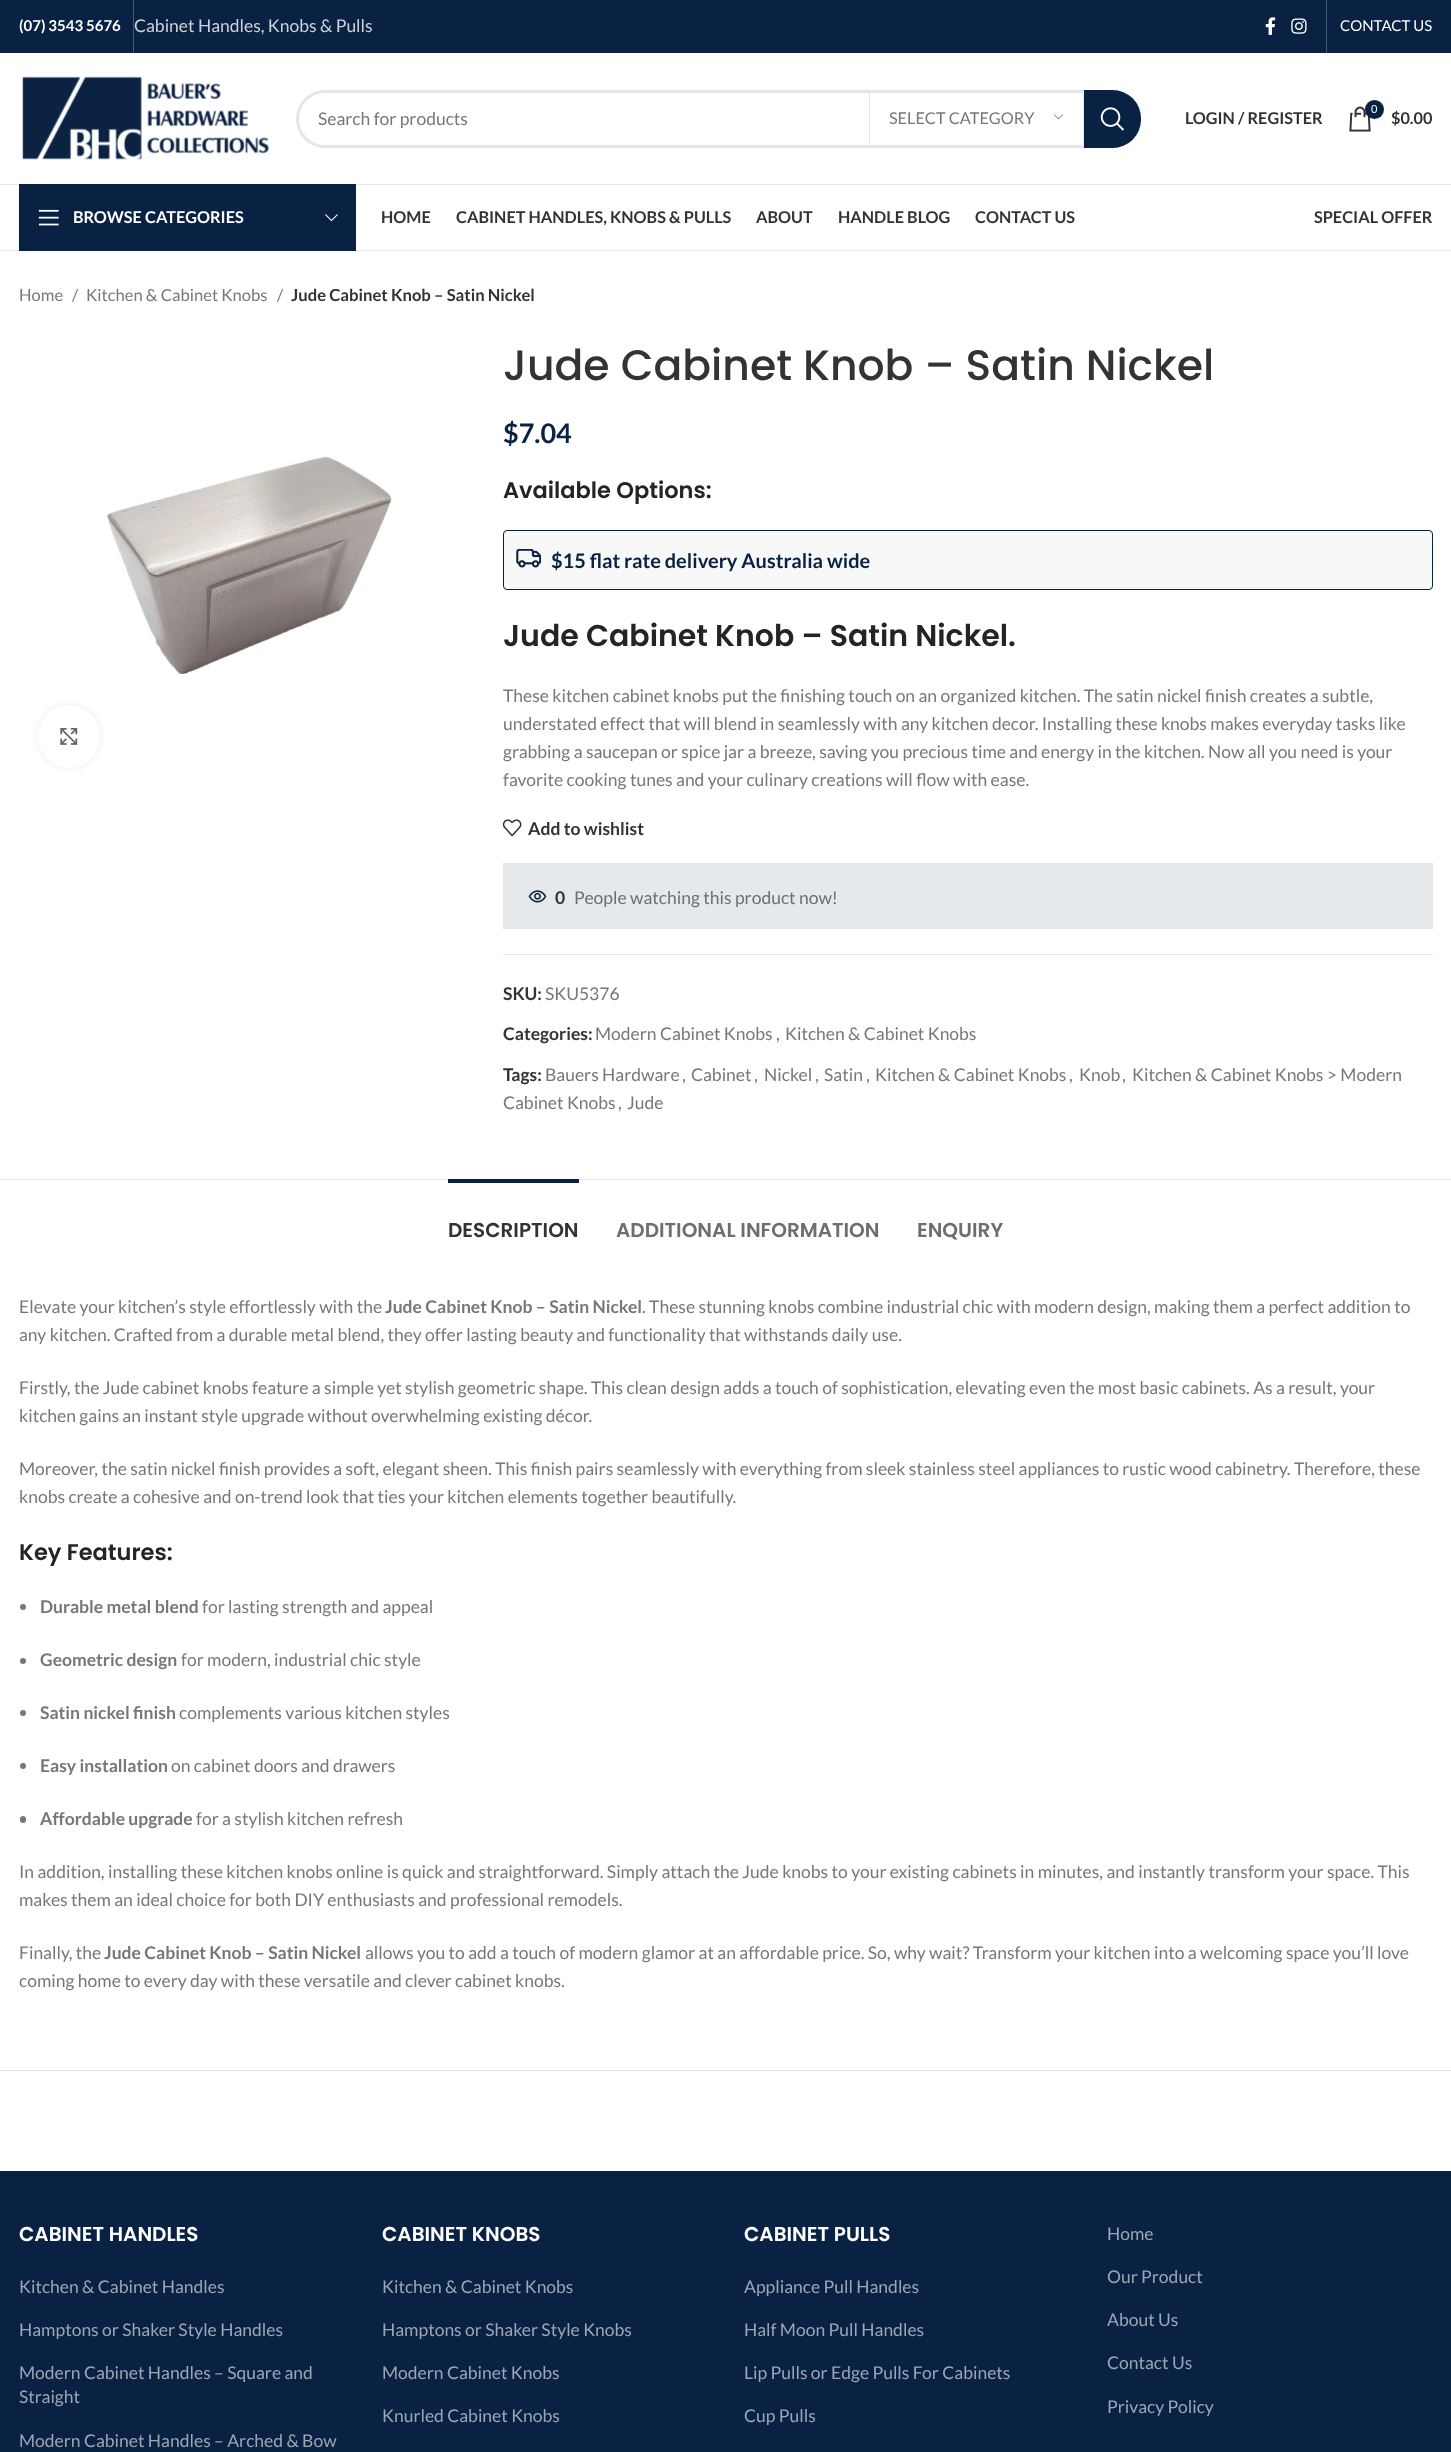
<!DOCTYPE html>
<meta charset="utf-8">
<style>body { margin: 0 } canvas { display: block }</style>
<canvas id="canvas" width="1451" height="2452"></canvas>
<img id="img1" src="img_01.png" hidden>
<img id="img2" src="img_02.png" hidden>
<img id="img3" src="img_03.png" hidden>
<img id="img4" src="img_04.png" hidden>
<img id="img5" src="img_05.png" hidden>
<img id="img6" src="img_06.png" hidden>
<img id="img7" src="img_07.png" hidden>
<img id="img8" src="img_08.png" hidden>
<img id="img9" src="img_09.png" hidden>
<img id="img10" src="img_10.png" hidden>
<img id="img11" src="img_11.png" hidden>
<img id="img12" src="img_12.png" hidden>
<img id="img13" src="img_13.png" hidden>
<script>
window.onload = function () {
	const canvas = document.getElementById("canvas");
	const ctx = canvas.getContext("2d");
	ctx.miterLimit = 4;
	ctx.fontKerning = "normal";
	function txt(s, x, y) {
		ctx.fillText(s, x, y);
	}
	function fill(x, y, w, h) {
		ctx.fillRect(x, y, w, h);
	}
	function round(x, y, w, h, r) {
		ctx.beginPath();
		ctx.roundRect(x, y, w, h, r);
		ctx.fill();
	}
	function img(id, x, y, w, h) {
		ctx.drawImage(document.getElementById(id), x, y, w, h);
	}

	ctx.fillStyle = "#FFFFFF";
	fill(0, 0, 1451, 2452);
	ctx.fillStyle = "#E6E9EC";
	fill(503, 863, 930, 66);
	ctx.fillStyle = "#092143";
	fill(0, 0, 1451, 53);
	ctx.fillStyle = "#475972";
	fill(133, 0, 1, 53);
	img("img1", 1265, 17, 11, 18);
	img("img2", 1291, 18, 16, 16);
	fill(1326, 0, 1, 53);
	ctx.fillStyle = "#E8E8E8";
	fill(0, 184, 1451, 1);
	img("img3", 22, 76, 247, 84);
	ctx.beginPath();
	ctx.roundRect(297.5, 91.5, 842, 55, 27.5);
	ctx.strokeStyle = "#E6E6E6";
	ctx.lineWidth = 3;
	ctx.stroke();
	ctx.fillStyle = "#E6E6E6";
	fill(1083, 93, 1, 52);
	fill(869, 93, 1, 52);
	img("img4", 1053, 114, 10, 6);
	ctx.fillStyle = "#092143";
	ctx.beginPath();
	ctx.roundRect(1084, 90, 57, 58, [0, 28.5, 28.5, 0]);
	ctx.fill();
	img("img5", 1100, 107, 24, 24);
	img("img6", 1349, 106, 22, 26);
	ctx.beginPath();
	ctx.arc(1374.5, 109.5, 9.5, 0, Math.PI * 2);
	ctx.fill();
	ctx.fillStyle = "#E8E8E8";
	fill(0, 250, 1451, 1);
	ctx.fillStyle = "#092143";
	fill(19, 184, 337, 67);
	img("img7", 38, 209, 21, 17);
	img("img8", 325, 214, 13, 8);
	img("img9", 107, 456, 285, 219);
	ctx.fillStyle = "rgba(0, 0, 0, 0.08)";
	ctx.filter = "blur(3px)";
	ctx.beginPath();
	ctx.roundRect(38, 705, 62, 63, 31);
	ctx.fill();
	ctx.filter = "none";
	ctx.fillStyle = "#FFFFFF";
	round(38, 705, 62, 63, 31);
	img("img10", 60, 728, 18, 17);
	ctx.fillStyle = "#F8F8F8";
	ctx.beginPath();
	ctx.roundRect(503.5, 530.5, 929, 59, 3.5);
	ctx.fill();
	ctx.strokeStyle = "#092143";
	ctx.lineWidth = 1;
	ctx.stroke();
	img("img11", 516, 549, 25, 19);
	img("img12", 502, 819, 20, 18);
	img("img13", 528, 890, 19, 13);
	ctx.fillStyle = "#E4E4E4";
	fill(503, 954, 930, 1);
	fill(0, 1179, 1451, 1);
	fill(0, 2070, 1451, 1);
	ctx.fillStyle = "#092143";
	fill(448, 1179, 131, 4);
	ctx.fillStyle = "#777777";
	ctx.beginPath();
	ctx.arc(23, 1607, 3, 0, Math.PI * 2);
	ctx.fill();
	ctx.beginPath();
	ctx.arc(23, 1661, 3, 0, Math.PI * 2);
	ctx.fill();
	ctx.beginPath();
	ctx.arc(23, 1713, 3, 0, Math.PI * 2);
	ctx.fill();
	ctx.beginPath();
	ctx.arc(23, 1766, 3, 0, Math.PI * 2);
	ctx.fill();
	round(20, 1816, 6, 7, 3);
	ctx.fillStyle = "#092143";
	fill(0, 2171, 1451, 281);
	ctx.font = "bold 15px Lato";
	ctx.fillStyle = "#FFFFFF";
	txt("(07) 3543 5676", 19, 31);
	ctx.font = "17.5px Lato";
	ctx.fillStyle = "#CED3D9";
	txt("Cabinet Handles, Knobs & Pulls", 134, 32);
	ctx.font = "15px Lato";
	ctx.fillStyle = "#FFFFFF";
	txt("CONTACT US", 1340, 31);
	ctx.font = "17.5px Lato";
	ctx.fillStyle = "#777777";
	txt("Search for products", 318, 125);
	ctx.font = "16.25px Lato";
	txt("SELECT CATEGORY", 889, 124);
	ctx.font = "bold 16.25px Lato";
	ctx.fillStyle = "#333333";
	txt("LOGIN / REGISTER", 1185, 124);
	ctx.font = "11px Lato";
	ctx.fillStyle = "#FFFFFF";
	txt("0", 1371, 113);
	ctx.font = "bold 16.25px Lato";
	ctx.fillStyle = "#333333";
	txt("$0.00", 1391, 124);
	ctx.fillStyle = "#FFFFFF";
	txt("BROWSE CATEGORIES", 73, 223);
	ctx.fillStyle = "#333333";
	txt("HOME", 381, 223);
	txt("CABINET HANDLES, KNOBS & PULLS", 456, 223);
	txt("ABOUT", 756, 223);
	txt("HANDLE BLOG", 838, 223);
	txt("CONTACT US", 975, 223);
	txt("SPECIAL OFFER", 1314, 223);
	ctx.font = "16.6px Lato";
	ctx.fillStyle = "#777777";
	txt("Home", 19, 301);
	txt("/", 72, 301);
	txt("Kitchen & Cabinet Knobs", 86, 301);
	txt("/", 277, 301);
	ctx.font = "bold 16.6px Lato";
	ctx.fillStyle = "#333333";
	txt("Jude Cabinet Knob – Satin Nickel", 291, 301);
	ctx.font = "500 42.5px Poppins";
	txt("Jude Cabinet Knob – Satin Nickel", 503, 380);
	ctx.font = "bold 27px Lato";
	ctx.fillStyle = "#092143";
	txt("$7.04", 503, 443);
	ctx.font = "600 22.5px Poppins";
	ctx.fillStyle = "#242424";
	txt("Available Options:", 503, 498);
	ctx.font = "bold 20px Lato";
	ctx.fillStyle = "#092143";
	txt("$15 flat rate delivery Australia wide", 551, 568);
	ctx.font = "600 30px Poppins";
	ctx.fillStyle = "#242424";
	txt("Jude Cabinet Knob – Satin Nickel.", 503, 646);
	ctx.font = "17.5px Lato";
	ctx.fillStyle = "#777777";
	txt("These kitchen cabinet knobs put the finishing touch on an organized kitchen. The satin nickel finish creates a subtle,", 503, 702);
	txt("understated effect that will blend in seamlessly with any kitchen decor. Installing these knobs makes everyday tasks like", 503, 730);
	txt("grabbing a saucepan or spice jar a breeze, saving you precious time and energy in the kitchen. Now all you need is your", 503, 758);
	txt("favorite cooking tunes and your culinary creations will flow with ease.", 503, 786);
	ctx.font = "bold 17.5px Lato";
	ctx.fillStyle = "#333333";
	txt("Add to wishlist", 528, 835);
	txt("0", 555, 904);
	ctx.font = "17.5px Lato";
	ctx.fillStyle = "#6C6E72";
	txt("People watching this product now!", 574, 904);
	ctx.font = "bold 17.5px Lato";
	ctx.fillStyle = "#333333";
	txt("SKU:", 503, 1000);
	ctx.font = "17.5px Lato";
	ctx.fillStyle = "#777777";
	txt("SKU5376", 545, 1000);
	ctx.font = "bold 17.5px Lato";
	ctx.fillStyle = "#333333";
	txt("Categories:", 503, 1040);
	ctx.font = "17.5px Lato";
	ctx.fillStyle = "#777777";
	txt("Modern Cabinet Knobs", 595, 1040);
	txt(",", 776, 1040);
	txt("Kitchen & Cabinet Knobs", 785, 1040);
	ctx.font = "bold 17.5px Lato";
	ctx.fillStyle = "#333333";
	txt("Tags:", 503, 1081);
	ctx.font = "17.5px Lato";
	ctx.fillStyle = "#777777";
	txt("Bauers Hardware", 545, 1081);
	txt(",", 682, 1081);
	txt("Cabinet", 691, 1081);
	txt(",", 754, 1081);
	txt("Nickel", 764, 1081);
	txt(",", 815, 1081);
	txt("Satin", 824, 1081);
	txt(",", 866, 1081);
	txt("Kitchen & Cabinet Knobs", 875, 1081);
	txt(",", 1069, 1081);
	txt("Knob", 1079, 1081);
	txt(",", 1122, 1081);
	txt("Kitchen & Cabinet Knobs > Modern", 1132, 1081);
	txt("Cabinet Knobs", 503, 1109);
	txt(",", 618, 1109);
	txt("Jude", 627, 1109);
	ctx.font = "600 20px Poppins";
	ctx.fillStyle = "#333333";
	txt("DESCRIPTION", 448, 1237);
	ctx.fillStyle = "#6C6E72";
	txt("ADDITIONAL INFORMATION", 616, 1237);
	txt("ENQUIRY", 917, 1237);
	ctx.font = "17.5px Lato";
	ctx.fillStyle = "#777777";
	txt("Elevate your kitchen’s style effortlessly with the", 19, 1313);
	ctx.font = "bold 17.5px Lato";
	txt("Jude Cabinet Knob – Satin Nickel", 385, 1313);
	ctx.font = "17.5px Lato";
	txt(". These stunning knobs combine industrial chic with modern design, making them a perfect addition to", 642, 1313);
	txt("any kitchen. Crafted from a durable metal blend, they offer lasting beauty and functionality that withstands daily use.", 19, 1341);
	txt("Firstly, the Jude cabinet knobs feature a simple yet stylish geometric shape. This clean design adds a touch of sophistication, elevating even the most basic cabinets. As a result, your", 19, 1394);
	txt("kitchen gains an instant style upgrade without overwhelming existing décor.", 19, 1422);
	txt("Moreover, the satin nickel finish provides a soft, elegant sheen. This finish pairs seamlessly with everything from sleek stainless steel appliances to rustic wood cabinetry. Therefore, these", 19, 1475);
	txt("knobs create a cohesive and on-trend look that ties your kitchen elements together beautifully.", 19, 1503);
	ctx.font = "600 22.5px Poppins";
	ctx.fillStyle = "#242424";
	txt("Key Features:", 19, 1560);
	ctx.font = "bold 17.5px Lato";
	ctx.fillStyle = "#777777";
	txt("Durable metal blend", 40, 1613);
	ctx.font = "17.5px Lato";
	txt("for lasting strength and appeal", 202, 1613);
	ctx.font = "bold 17.5px Lato";
	txt("Geometric design", 40, 1666);
	ctx.font = "17.5px Lato";
	txt("for modern, industrial chic style", 181, 1666);
	ctx.font = "bold 17.5px Lato";
	txt("Satin nickel finish", 40, 1719);
	ctx.font = "17.5px Lato";
	txt("complements various kitchen styles", 179, 1719);
	ctx.font = "bold 17.5px Lato";
	txt("Easy installation", 40, 1772);
	ctx.font = "17.5px Lato";
	txt("on cabinet doors and drawers", 171, 1772);
	ctx.font = "bold 17.5px Lato";
	txt("Affordable upgrade", 40, 1825);
	ctx.font = "17.5px Lato";
	txt("for a stylish kitchen refresh", 196, 1825);
	txt("In addition, installing these kitchen knobs online is quick and straightforward. Simply attach the Jude knobs to your existing cabinets in minutes, and instantly transform your space. This", 19, 1878);
	txt("makes them an ideal choice for both DIY enthusiasts and professional remodels.", 19, 1906);
	txt("Finally, the", 19, 1959);
	ctx.font = "bold 17.5px Lato";
	txt("Jude Cabinet Knob – Satin Nickel", 104, 1959);
	ctx.font = "17.5px Lato";
	txt("allows you to add a touch of modern glamor at an affordable price. So, why wait? Transform your kitchen into a welcoming space you’ll love", 365, 1959);
	txt("coming home to every day with these versatile and clever cabinet knobs.", 19, 1987);
	ctx.font = "600 20px Poppins";
	ctx.fillStyle = "#FFFFFF";
	txt("CABINET HANDLES", 19, 2241);
	ctx.font = "17.5px Lato";
	ctx.fillStyle = "#9DA6B4";
	txt("Kitchen & Cabinet Handles", 19, 2293);
	txt("Hamptons or Shaker Style Handles", 19, 2336);
	txt("Modern Cabinet Handles – Square and", 19, 2379);
	txt("Straight", 19, 2403);
	txt("Modern Cabinet Handles – Arched & Bow", 19, 2447);
	ctx.font = "600 20px Poppins";
	ctx.fillStyle = "#FFFFFF";
	txt("CABINET KNOBS", 382, 2241);
	ctx.font = "17.5px Lato";
	ctx.fillStyle = "#9DA6B4";
	txt("Kitchen & Cabinet Knobs", 382, 2293);
	txt("Hamptons or Shaker Style Knobs", 382, 2336);
	txt("Modern Cabinet Knobs", 382, 2379);
	txt("Knurled Cabinet Knobs", 382, 2422);
	ctx.font = "600 20px Poppins";
	ctx.fillStyle = "#FFFFFF";
	txt("CABINET PULLS", 744, 2241);
	ctx.font = "17.5px Lato";
	ctx.fillStyle = "#9DA6B4";
	txt("Appliance Pull Handles", 744, 2293);
	txt("Half Moon Pull Handles", 744, 2336);
	txt("Lip Pulls or Edge Pulls For Cabinets", 744, 2379);
	txt("Cup Pulls", 744, 2422);
	txt("Home", 1107, 2240);
	txt("Our Product", 1107, 2283);
	txt("About Us", 1107, 2326);
	txt("Contact Us", 1107, 2369);
	txt("Privacy Policy", 1107, 2413);
};
</script>
